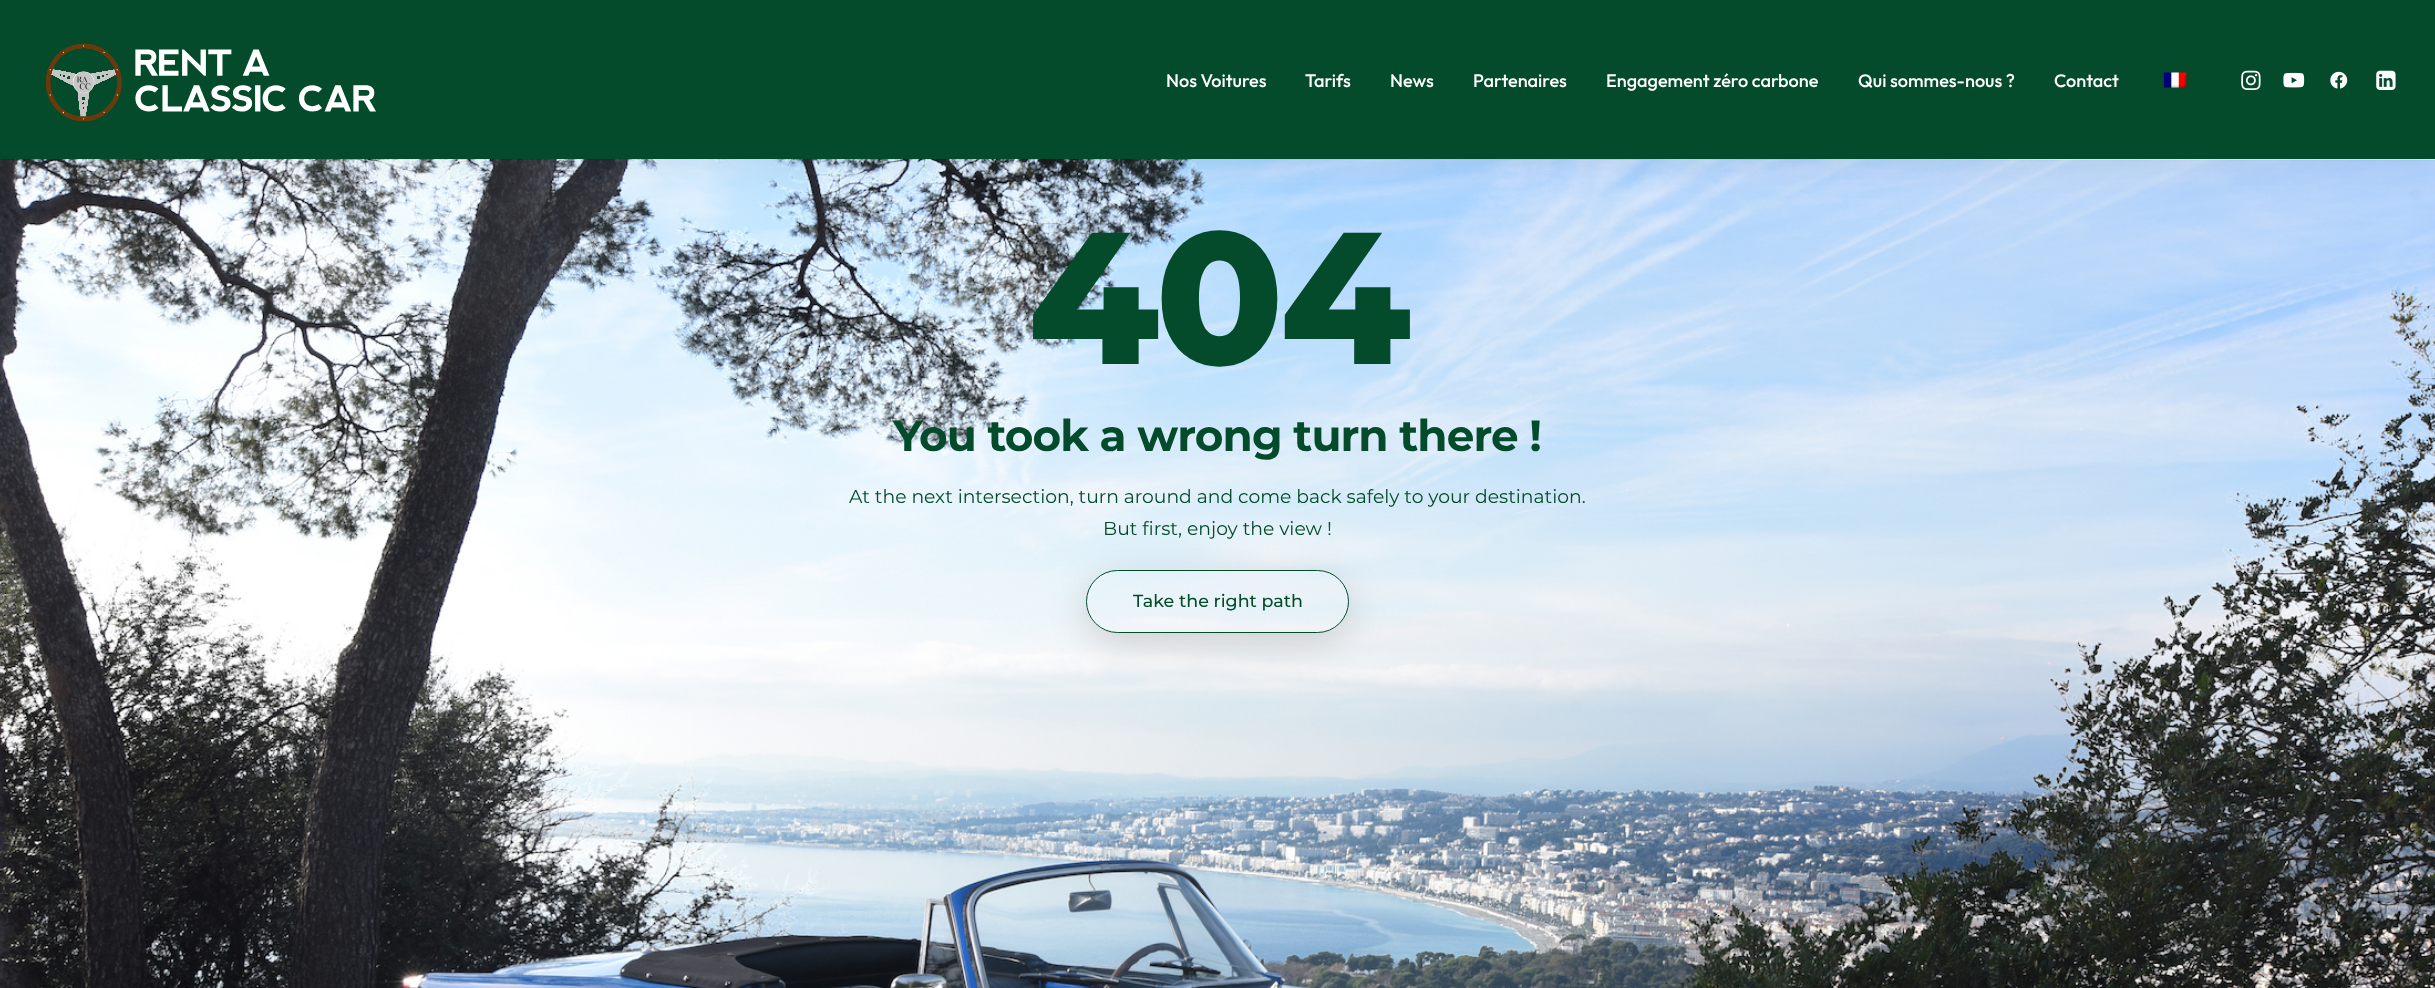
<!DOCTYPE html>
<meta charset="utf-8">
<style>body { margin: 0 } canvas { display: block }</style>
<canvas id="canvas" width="2435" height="988"></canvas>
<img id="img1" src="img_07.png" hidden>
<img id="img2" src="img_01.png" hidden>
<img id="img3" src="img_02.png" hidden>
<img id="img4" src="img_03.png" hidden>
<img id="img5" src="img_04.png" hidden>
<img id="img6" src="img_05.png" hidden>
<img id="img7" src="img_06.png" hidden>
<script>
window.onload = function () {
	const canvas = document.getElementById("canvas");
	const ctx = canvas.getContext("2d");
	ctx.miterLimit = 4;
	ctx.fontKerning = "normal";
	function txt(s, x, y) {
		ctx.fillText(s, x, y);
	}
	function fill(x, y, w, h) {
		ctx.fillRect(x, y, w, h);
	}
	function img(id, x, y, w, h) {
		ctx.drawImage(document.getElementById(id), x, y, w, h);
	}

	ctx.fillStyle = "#FFFFFF";
	fill(0, 0, 2435, 988);
	img("img1", 0, 159, 2435, 829);
	ctx.fillStyle = "rgba(0, 0, 0, 0.07)";
	ctx.filter = "blur(19px)";
	ctx.beginPath();
	ctx.rect(-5, 0, 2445, 159);
	ctx.fill();
	ctx.filter = "none";
	ctx.fillStyle = "#044B2B";
	fill(0, 0, 2435, 159);
	img("img2", 45, 43, 331, 78);
	img("img3", 2163, 72, 24, 16);
	img("img4", 2241, 70, 20, 20);
	img("img5", 2283, 72, 22, 16);
	img("img6", 2330, 71, 18, 18);
	img("img7", 2376, 70, 20, 20);
	ctx.save();
	ctx.beginPath();
	ctx.moveTo(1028, 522);
	ctx.lineTo(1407, 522);
	ctx.lineTo(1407, 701);
	ctx.lineTo(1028, 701);
	ctx.closePath();
	ctx.moveTo(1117.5, 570);
	ctx.lineTo(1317.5, 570);
	ctx.bezierCurveTo(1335, 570, 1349, 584, 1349, 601.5);
	ctx.bezierCurveTo(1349, 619, 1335, 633, 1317.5, 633);
	ctx.lineTo(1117.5, 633);
	ctx.bezierCurveTo(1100, 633, 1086, 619, 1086, 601.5);
	ctx.bezierCurveTo(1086, 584, 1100, 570, 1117.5, 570);
	ctx.closePath();
	ctx.clip("evenodd");
	ctx.fillStyle = "rgba(0, 0, 0, 0.15)";
	ctx.filter = "blur(19px)";
	ctx.beginPath();
	ctx.roundRect(1086, 580, 263, 63, 31.5);
	ctx.fill();
	ctx.filter = "none";
	ctx.restore();
	ctx.beginPath();
	ctx.roundRect(1086.5, 570.5, 262, 62, 31);
	ctx.strokeStyle = "#044B2B";
	ctx.stroke();
	ctx.font = "500 18.1px Outfit";
	ctx.fillStyle = "#FFFFFF";
	txt("Nos Voitures", 1166, 87);
	txt("Tarifs", 1305, 87);
	txt("News", 1390, 87);
	txt("Partenaires", 1473, 87);
	txt("Engagement zéro carbone", 1606, 87);
	txt("Qui sommes-nous ?", 1858, 87);
	txt("Contact", 2054, 87);
	ctx.letterSpacing = "-4px";
	ctx.font = "800 187.5px Montserrat";
	ctx.fillStyle = "#044B2B";
	txt("404", 1028, 364);
	ctx.letterSpacing = "-0.9px";
	ctx.font = "bold 43.75px Montserrat";
	txt("You took a wrong turn there !", 893, 451);
	ctx.letterSpacing = "0px";
	ctx.font = "18.75px Montserrat";
	txt("At the next intersection, turn around and come back safely to your destination.", 849, 503);
	txt("But first, enjoy the view !", 1103, 535);
	ctx.font = "500 17.5px Montserrat";
	txt("Take the right path", 1133, 607);
};
</script>
